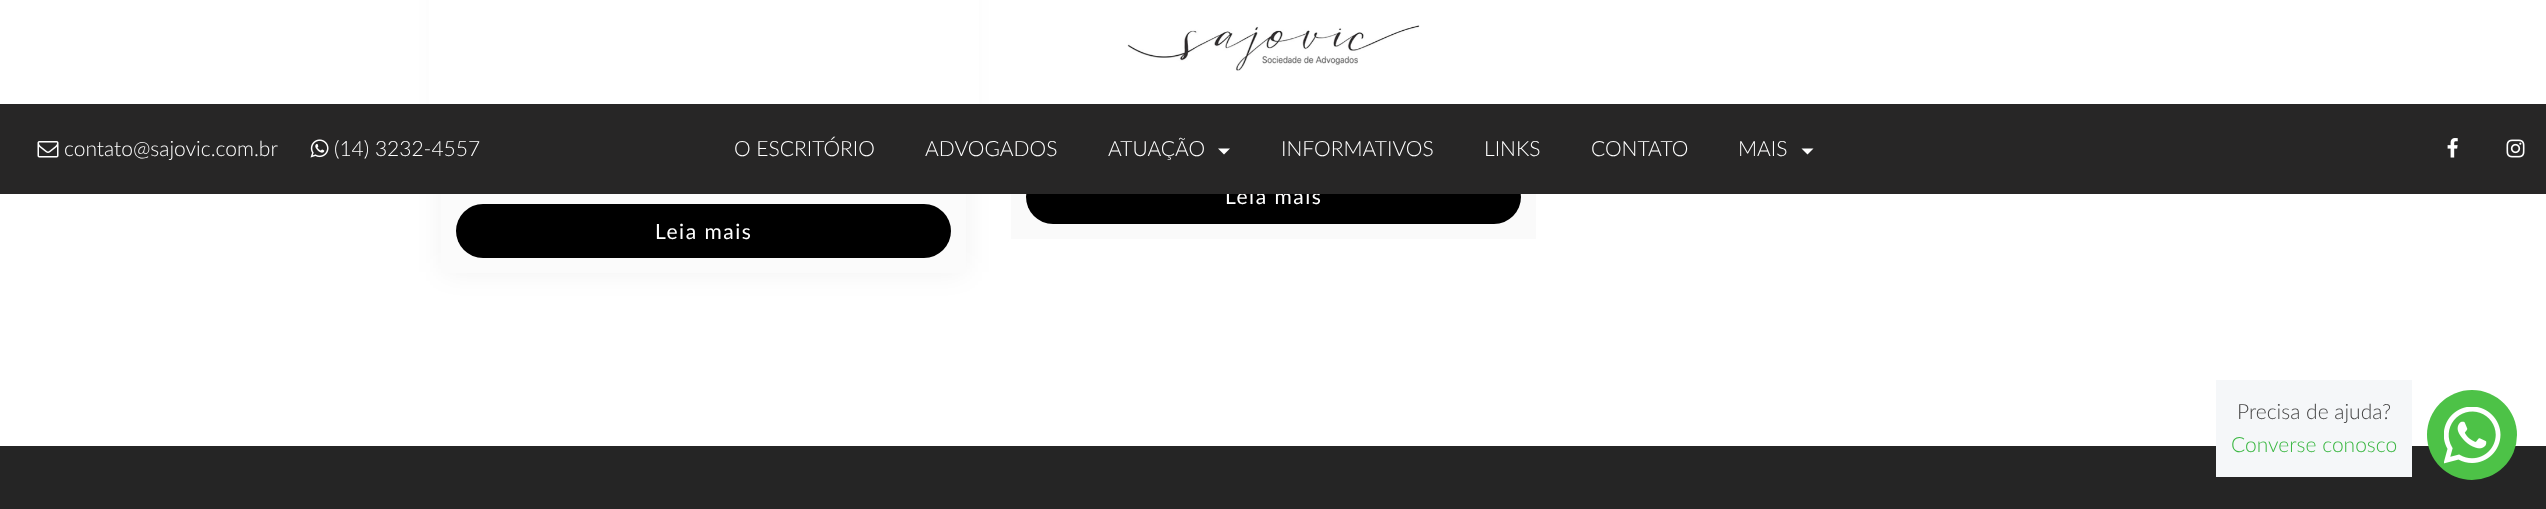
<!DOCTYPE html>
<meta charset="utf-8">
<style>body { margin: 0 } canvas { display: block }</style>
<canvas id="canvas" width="2546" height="509"></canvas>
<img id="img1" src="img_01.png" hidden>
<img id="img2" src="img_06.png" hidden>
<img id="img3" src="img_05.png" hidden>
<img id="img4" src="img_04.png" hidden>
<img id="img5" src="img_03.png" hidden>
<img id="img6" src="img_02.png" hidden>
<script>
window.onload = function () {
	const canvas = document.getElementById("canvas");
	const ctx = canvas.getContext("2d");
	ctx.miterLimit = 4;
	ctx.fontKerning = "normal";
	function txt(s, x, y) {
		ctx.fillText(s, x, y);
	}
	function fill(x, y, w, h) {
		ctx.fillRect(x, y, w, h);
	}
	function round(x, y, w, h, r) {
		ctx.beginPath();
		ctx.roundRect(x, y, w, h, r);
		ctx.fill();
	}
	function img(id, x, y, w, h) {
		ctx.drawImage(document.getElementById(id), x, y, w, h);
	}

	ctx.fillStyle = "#FFFFFF";
	fill(0, 0, 2546, 509);
	ctx.fillStyle = "rgba(0, 0, 0, 0.06)";
	ctx.filter = "blur(14px)";
	ctx.beginPath();
	ctx.rect(443, -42, 522, 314);
	ctx.fill();
	ctx.filter = "none";
	ctx.fillStyle = "#FFFFFF";
	fill(429, 0, 550, 104);
	img("img1", 1127, 25, 293, 46);
	ctx.fillStyle = "rgba(247, 247, 247, 0.58)";
	fill(1011, 194, 525, 45);
	ctx.fillStyle = "#000000";
	round(1026, 170, 495, 54, 27);
	ctx.fillStyle = "#FBFBFB";
	fill(441, 194, 525, 79);
	ctx.fillStyle = "#000000";
	round(456, 204, 495, 54, 27);
	ctx.fillStyle = "#252525";
	fill(0, 446, 2546, 63);
	ctx.fillStyle = "#F5F7F9";
	fill(2216, 380, 196, 97);
	ctx.fillStyle = "#4DC247";
	ctx.beginPath();
	ctx.arc(2472, 435, 45, 0, Math.PI * 2);
	ctx.fill();
	img("img2", 2444, 407, 57, 57);
	ctx.letterSpacing = "1.5px";
	ctx.font = "21px Lato";
	ctx.fillStyle = "#FFFFFF";
	txt("Leia mais", 1225, 204);
	ctx.fillStyle = "#272626";
	fill(0, 104, 2546, 90);
	ctx.fillStyle = "#FFFFFF";
	ctx.beginPath();
	ctx.moveTo(1801.5, 148.5);
	ctx.lineTo(1813.5, 148.5);
	ctx.lineTo(1807.5, 154.5);
	ctx.closePath();
	ctx.fill();
	ctx.letterSpacing = "0px";
	ctx.font = "300 21px Lato";
	txt("MAIS", 1738, 156);
	txt("CONTATO", 1591, 156);
	txt("LINKS", 1484, 156);
	txt("INFORMATIVOS", 1281, 156);
	ctx.beginPath();
	ctx.moveTo(1218, 148.5);
	ctx.lineTo(1230, 148.5);
	ctx.lineTo(1224, 154.5);
	ctx.closePath();
	ctx.fill();
	txt("ATUAÇÃO", 1108, 156);
	txt("ADVOGADOS", 925, 156);
	txt("O ESCRITÓRIO", 734, 156);
	img("img3", 2506, 139, 19, 19);
	img("img4", 2447, 138, 11, 20);
	txt("(14) 3232-4557", 334, 156);
	img("img5", 310, 139, 19, 19);
	txt("contato@sajovic.com.br", 64, 156);
	img("img6", 37, 141, 22, 17);
	ctx.letterSpacing = "1.5px";
	ctx.font = "21px Lato";
	txt("Leia mais", 655, 239);
	ctx.letterSpacing = "0px";
	ctx.font = "300 21px Lato";
	ctx.fillStyle = "#454545";
	txt("Precisa de ajuda?", 2237, 419);
	ctx.fillStyle = "#3AB742";
	txt("Converse conosco", 2231, 452);
};
</script>
